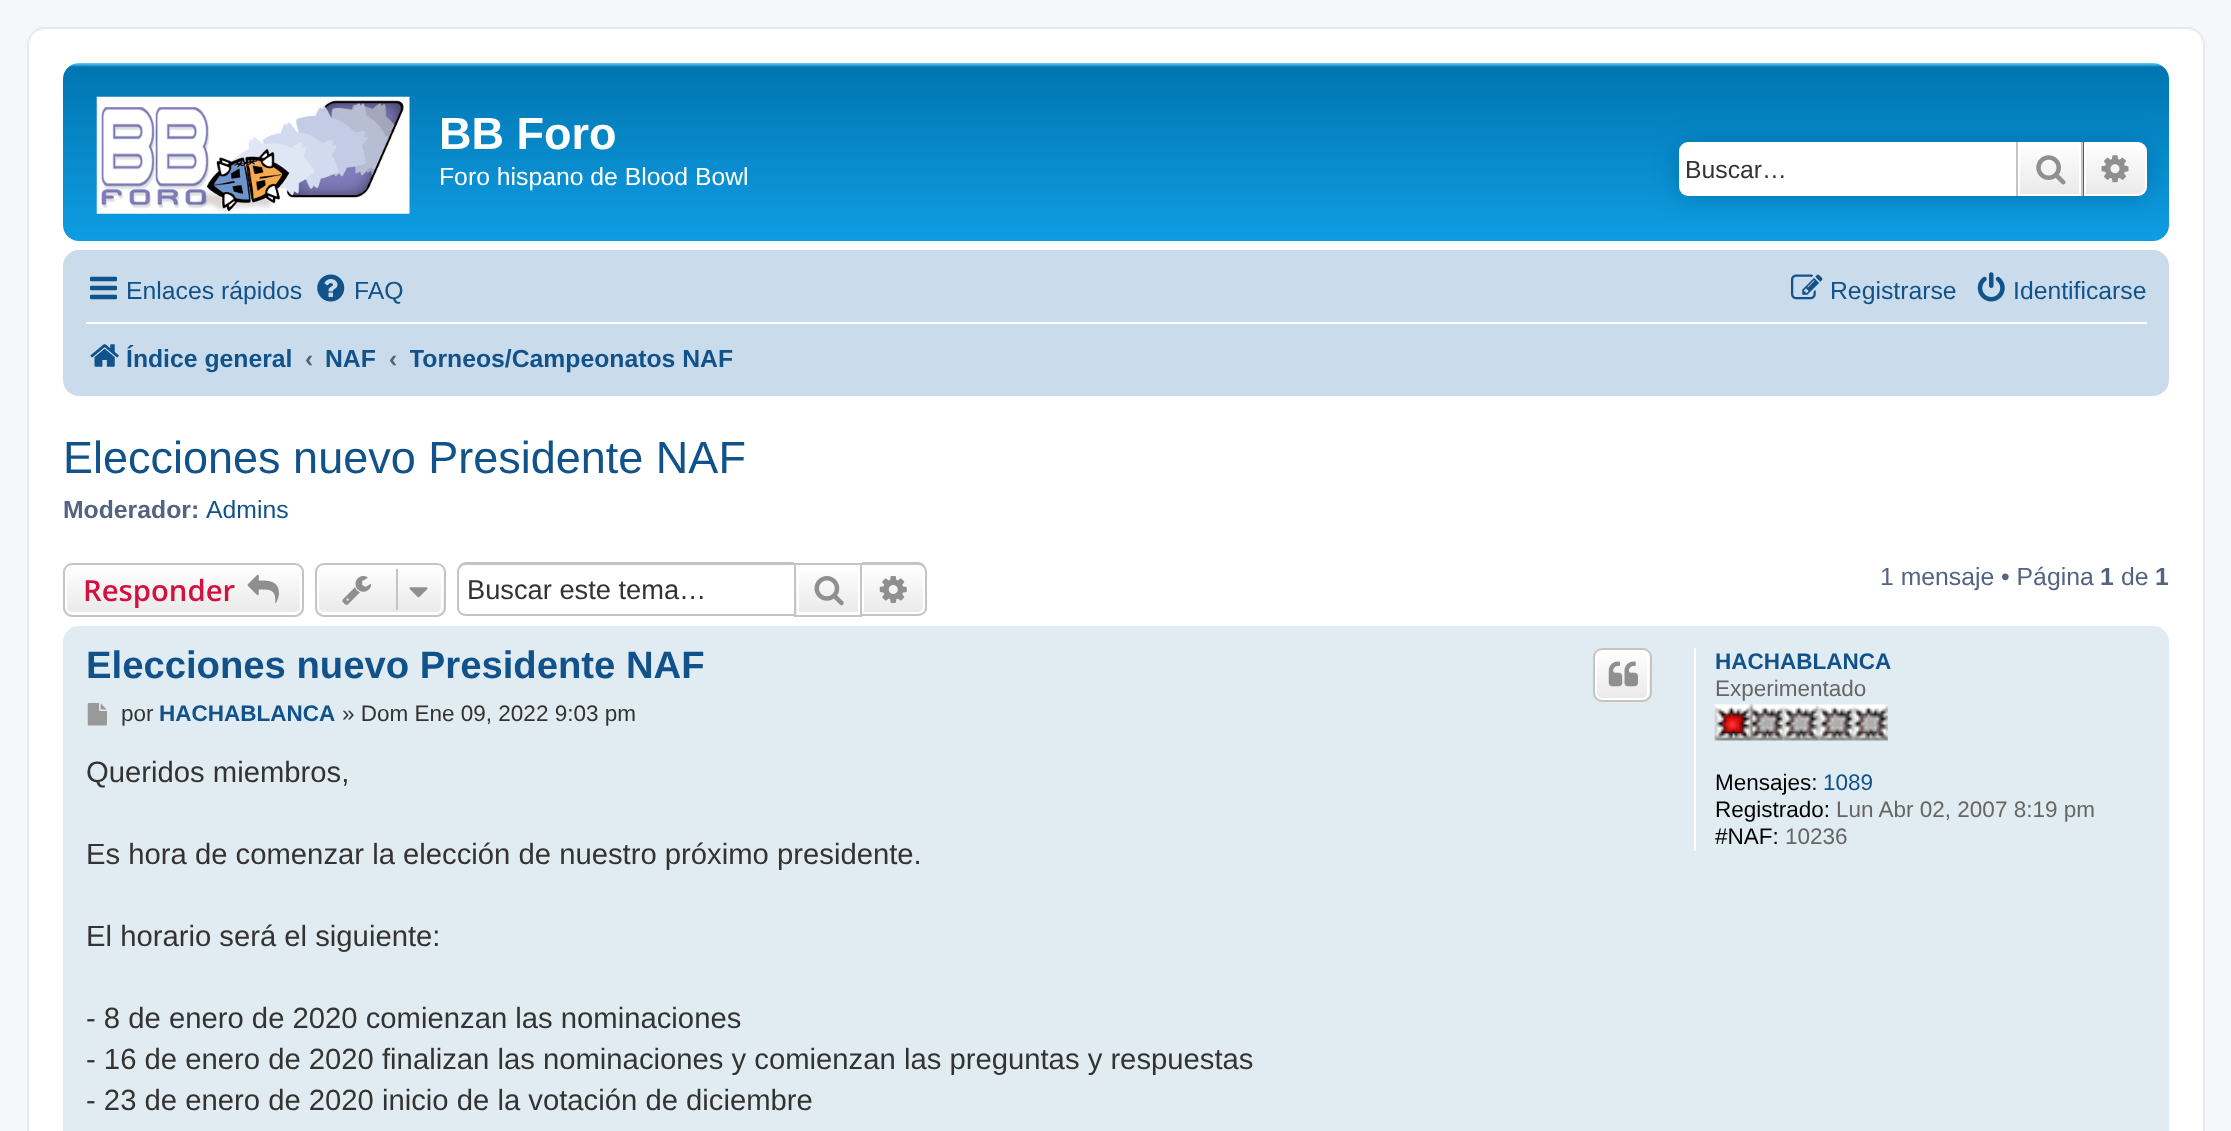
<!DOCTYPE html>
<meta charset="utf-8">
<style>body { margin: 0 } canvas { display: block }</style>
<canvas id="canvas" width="2231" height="1131"></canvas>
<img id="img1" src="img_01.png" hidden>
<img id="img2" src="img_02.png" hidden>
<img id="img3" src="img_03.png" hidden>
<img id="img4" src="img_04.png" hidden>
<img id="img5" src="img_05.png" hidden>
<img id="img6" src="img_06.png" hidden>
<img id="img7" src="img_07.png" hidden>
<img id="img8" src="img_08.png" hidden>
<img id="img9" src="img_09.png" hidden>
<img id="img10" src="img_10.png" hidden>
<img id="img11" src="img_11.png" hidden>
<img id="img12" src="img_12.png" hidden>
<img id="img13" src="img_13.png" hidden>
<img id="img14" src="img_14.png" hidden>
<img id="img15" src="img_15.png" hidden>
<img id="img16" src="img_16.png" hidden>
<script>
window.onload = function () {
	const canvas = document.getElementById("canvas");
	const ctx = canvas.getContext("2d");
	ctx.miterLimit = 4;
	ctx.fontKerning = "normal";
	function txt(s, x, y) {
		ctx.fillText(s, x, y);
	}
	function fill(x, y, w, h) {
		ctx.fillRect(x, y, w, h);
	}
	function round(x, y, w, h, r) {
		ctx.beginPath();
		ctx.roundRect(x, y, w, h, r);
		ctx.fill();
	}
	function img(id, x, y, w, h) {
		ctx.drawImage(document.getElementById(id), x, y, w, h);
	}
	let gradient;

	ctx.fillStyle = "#F5F7FA";
	fill(0, 0, 2231, 1131);
	ctx.fillStyle = "#FFFFFF";
	ctx.beginPath();
	ctx.roundRect(28, 28, 2176, 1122, 17);
	ctx.fill();
	ctx.strokeStyle = "#E6E9ED";
	ctx.lineWidth = 2;
	ctx.stroke();
	gradient = ctx.createLinearGradient(1116, 63, 1116, 270);
	gradient.addColorStop(0, "#6ACEFF");
	gradient.addColorStop(0.02, "#0076B1");
	gradient.addColorStop(1, "#12A3EB");
	ctx.fillStyle = gradient;
	round(63, 63, 2106, 178, 16);
	img("img1", 96, 96, 314, 118);
	ctx.fillStyle = "#0075B0";
	ctx.filter = "blur(11px)";
	ctx.beginPath();
	ctx.roundRect(1679, 142, 468, 54, 9);
	ctx.fill();
	ctx.filter = "none";
	ctx.fillStyle = "#FFFFFF";
	ctx.beginPath();
	ctx.roundRect(1679, 142, 337, 54, [9, 0, 0, 9]);
	ctx.fill();
	gradient = ctx.createLinearGradient(2050, 142, 2050, 196);
	gradient.addColorStop(0, "#FFFFFF");
	gradient.addColorStop(1, "#E9E9E9");
	ctx.fillStyle = gradient;
	fill(2020, 144, 59, 50);
	ctx.strokeStyle = "#FFFFFF";
	ctx.strokeRect(2019, 143, 61, 52);
	ctx.fillStyle = "#C7C3BF";
	fill(2081, 142, 2, 54);
	fill(2016, 142, 2, 54);
	img("img2", 2036, 155, 30, 30);
	gradient = ctx.createLinearGradient(2115, 142, 2115, 196);
	gradient.addColorStop(0, "#FFFFFF");
	gradient.addColorStop(1, "#E9E9E9");
	ctx.fillStyle = gradient;
	ctx.beginPath();
	ctx.roundRect(2085, 143, 61, 52, [0, 8, 8, 0]);
	ctx.fill();
	ctx.stroke();
	img("img3", 2101, 155, 28, 28);
	ctx.fillStyle = "#CADCEB";
	round(63, 250, 2106, 146, 16);
	img("img4", 90, 276, 27, 24);
	img("img5", 317, 274, 28, 28);
	img("img6", 1791, 274, 32, 26);
	img("img7", 1977, 272, 28, 30);
	ctx.fillStyle = "#FFFFFF";
	fill(86, 322, 2061, 2);
	img("img8", 90, 344, 29, 23);
	ctx.save();
	ctx.beginPath();
	ctx.roundRect(63, 563, 241, 54, 9);
	ctx.clip();
	gradient = ctx.createLinearGradient(183, 565, 183, 614);
	gradient.addColorStop(0, "#FFFFFF");
	gradient.addColorStop(1, "#E9E9E9");
	ctx.fillStyle = gradient;
	fill(63, 565, 241, 49);
	ctx.restore();
	ctx.beginPath();
	ctx.roundRect(66, 566, 235, 47, 6);
	ctx.stroke();
	ctx.beginPath();
	ctx.roundRect(64, 564, 239, 52, 8);
	ctx.strokeStyle = "#C7C3BF";
	ctx.stroke();
	img("img9", 247, 574, 32, 29);
	ctx.save();
	ctx.beginPath();
	ctx.roundRect(315, 563, 131, 54, 9);
	ctx.clip();
	gradient = ctx.createLinearGradient(380, 565, 380, 614);
	gradient.addColorStop(0, "#FFFFFF");
	gradient.addColorStop(1, "#E9E9E9");
	ctx.fillStyle = gradient;
	fill(315, 565, 131, 49);
	ctx.restore();
	ctx.beginPath();
	ctx.roundRect(318, 566, 124, 47, 6);
	ctx.strokeStyle = "#FFFFFF";
	ctx.stroke();
	ctx.beginPath();
	ctx.roundRect(316, 564, 129, 52, 8);
	ctx.strokeStyle = "#C7C3BF";
	ctx.stroke();
	img("img10", 342, 576, 30, 29);
	ctx.fillStyle = "#C7C3BF";
	fill(396, 569, 2, 41);
	img("img11", 409, 587, 19, 11);
	ctx.beginPath();
	ctx.moveTo(466, 562);
	ctx.lineTo(794, 562);
	ctx.lineTo(794, 616);
	ctx.lineTo(466, 616);
	ctx.bezierCurveTo(461, 616, 457, 612, 457, 608);
	ctx.lineTo(457, 572);
	ctx.bezierCurveTo(457, 567, 461, 562, 466, 562);
	ctx.closePath();
	ctx.moveTo(466, 565);
	ctx.lineTo(794, 565);
	ctx.lineTo(794, 614);
	ctx.lineTo(466, 614);
	ctx.bezierCurveTo(462, 614, 459, 611, 459, 608);
	ctx.lineTo(459, 572);
	ctx.bezierCurveTo(459, 568, 462, 565, 466, 565);
	ctx.closePath();
	ctx.fill("evenodd");
	gradient = ctx.createLinearGradient(828, 565, 828, 614);
	gradient.addColorStop(0, "#FFFFFF");
	gradient.addColorStop(1, "#E9E9E9");
	ctx.fillStyle = gradient;
	fill(796, 571, 62, 43);
	ctx.strokeStyle = "#FFFFFF";
	ctx.strokeRect(798, 566, 61, 47);
	ctx.strokeStyle = "#C7C3BF";
	ctx.strokeRect(795, 564, 66, 52);
	img("img12", 814, 576, 30, 30);
	gradient = ctx.createLinearGradient(893, 565, 893, 614);
	gradient.addColorStop(0, "#FFFFFF");
	gradient.addColorStop(1, "#E9E9E9");
	ctx.fillStyle = gradient;
	ctx.beginPath();
	ctx.roundRect(863, 566, 61, 47, [0, 6, 6, 0]);
	ctx.fill();
	ctx.strokeStyle = "#FFFFFF";
	ctx.stroke();
	ctx.fillStyle = "#C7C3BF";
	ctx.beginPath();
	ctx.moveTo(862, 562);
	ctx.lineTo(918, 562);
	ctx.bezierCurveTo(923, 562, 927, 567, 927, 572);
	ctx.lineTo(927, 608);
	ctx.bezierCurveTo(927, 612, 923, 616, 918, 616);
	ctx.lineTo(862, 616);
	ctx.closePath();
	ctx.moveTo(862, 565);
	ctx.lineTo(918, 565);
	ctx.bezierCurveTo(922, 565, 925, 568, 925, 572);
	ctx.lineTo(925, 608);
	ctx.bezierCurveTo(925, 611, 922, 614, 918, 614);
	ctx.lineTo(862, 614);
	ctx.closePath();
	ctx.fill("evenodd");
	img("img13", 879, 576, 28, 27);
	ctx.fillStyle = "#E1EBF2";
	round(63, 626, 2106, 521, 16);
	ctx.save();
	ctx.beginPath();
	ctx.roundRect(1593, 648, 59, 54, 9);
	ctx.clip();
	gradient = ctx.createLinearGradient(1622, 650, 1622, 700);
	gradient.addColorStop(0, "#FFFFFF");
	gradient.addColorStop(1, "#E9E9E9");
	ctx.fillStyle = gradient;
	fill(1593, 650, 59, 50);
	ctx.restore();
	ctx.beginPath();
	ctx.roundRect(1596, 651, 52, 48, 6);
	ctx.stroke();
	ctx.beginPath();
	ctx.roundRect(1594, 649, 57, 52, 8);
	ctx.strokeStyle = "#C7C3BF";
	ctx.stroke();
	img("img14", 1608, 661, 30, 26);
	img("img15", 87, 702, 20, 24);
	ctx.fillStyle = "#FFFFFF";
	fill(1694, 648, 2, 203);
	img("img16", 1714, 703, 174, 38);
	ctx.font = "bold 45px Liberation Sans";
	txt("BB Foro", 439, 149);
	ctx.font = "24.75px Liberation Sans";
	txt("Foro hispano de Blood Bowl", 439, 185);
	ctx.fillStyle = "#333333";
	txt("Buscar…", 1685, 178);
	ctx.fillStyle = "#105289";
	txt("Enlaces rápidos", 126, 299);
	txt("FAQ", 354, 299);
	txt("Registrarse", 1830, 299);
	txt("Identificarse", 2013, 299);
	ctx.font = "bold 24.75px Liberation Sans";
	txt("Índice general", 126, 367);
	ctx.fillStyle = "#536482";
	txt("‹", 305, 367);
	ctx.fillStyle = "#105289";
	txt("NAF", 325, 367);
	ctx.fillStyle = "#536482";
	txt("‹", 389, 367);
	ctx.save();
	ctx.beginPath();
	ctx.rect(410, 331, 324, 54);
	ctx.clip();
	ctx.fillStyle = "#105289";
	txt("Torneos/Campeonatos NAF", 409, 367);
	ctx.restore();
	ctx.font = "45px Liberation Sans";
	ctx.fillStyle = "#105289";
	txt("Elecciones nuevo Presidente NAF", 63, 473);
	ctx.font = "bold 24.75px Liberation Sans";
	ctx.fillStyle = "#536482";
	txt("Moderador:", 63, 518);
	ctx.font = "24.75px Liberation Sans";
	ctx.fillStyle = "#105289";
	txt("Admins", 206, 518);
	ctx.font = "600 29.25px Open Sans";
	ctx.fillStyle = "#D31141";
	txt("Responder", 83, 601);
	ctx.font = "27.25px Liberation Sans";
	ctx.fillStyle = "#333333";
	txt("Buscar este tema…", 467, 599);
	ctx.font = "24.75px Liberation Sans";
	ctx.fillStyle = "#536482";
	txt("1 mensaje • Página", 1880, 585);
	ctx.font = "bold 24.75px Liberation Sans";
	txt("1", 2100, 585);
	ctx.font = "24.75px Liberation Sans";
	txt("de", 2121, 585);
	ctx.font = "bold 24.75px Liberation Sans";
	txt("1", 2155, 585);
	ctx.font = "bold 38.25px Liberation Sans";
	ctx.fillStyle = "#105289";
	txt("Elecciones nuevo Presidente NAF", 86, 678);
	ctx.font = "22.5px Liberation Sans";
	ctx.fillStyle = "#333333";
	txt("por", 121, 721);
	ctx.font = "bold 22.5px Liberation Sans";
	ctx.fillStyle = "#105289";
	txt("HACHABLANCA", 159, 721);
	ctx.font = "22.5px Liberation Sans";
	ctx.fillStyle = "#333333";
	txt("» Dom Ene 09, 2022 9:03 pm", 342, 721);
	ctx.font = "29.25px Liberation Sans";
	txt("Queridos miembros,", 86, 782);
	txt("Es hora de comenzar la elección de nuestro próximo presidente.", 86, 864);
	txt("El horario será el siguiente:", 86, 946);
	txt("- 8 de enero de 2020 comienzan las nominaciones", 86, 1028);
	txt("- 16 de enero de 2020 finalizan las nominaciones y comienzan las preguntas y respuestas", 86, 1069);
	txt("- 23 de enero de 2020 inicio de la votación de diciembre", 86, 1110);
	ctx.font = "bold 22.5px Liberation Sans";
	ctx.fillStyle = "#105289";
	txt("HACHABLANCA", 1715, 669);
	ctx.font = "22.5px Liberation Sans";
	ctx.fillStyle = "#666666";
	txt("Experimentado", 1715, 696);
	ctx.fillStyle = "#000000";
	txt("Mensajes:", 1715, 790);
	ctx.fillStyle = "#105289";
	txt("1089", 1823, 790);
	ctx.fillStyle = "#000000";
	txt("Registrado:", 1715, 817);
	ctx.fillStyle = "#666666";
	txt("Lun Abr 02, 2007 8:19 pm", 1836, 817);
	ctx.fillStyle = "#000000";
	txt("#NAF:", 1715, 844);
	ctx.fillStyle = "#666666";
	txt("10236", 1785, 844);
};
</script>
